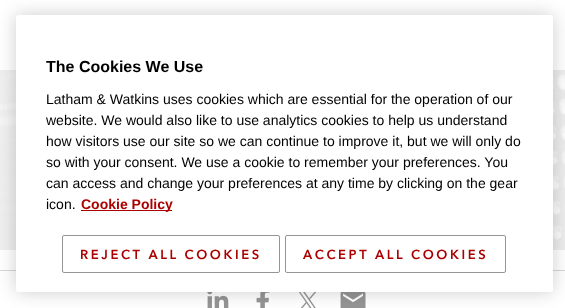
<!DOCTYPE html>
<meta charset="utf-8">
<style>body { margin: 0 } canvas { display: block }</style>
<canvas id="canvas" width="565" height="308"></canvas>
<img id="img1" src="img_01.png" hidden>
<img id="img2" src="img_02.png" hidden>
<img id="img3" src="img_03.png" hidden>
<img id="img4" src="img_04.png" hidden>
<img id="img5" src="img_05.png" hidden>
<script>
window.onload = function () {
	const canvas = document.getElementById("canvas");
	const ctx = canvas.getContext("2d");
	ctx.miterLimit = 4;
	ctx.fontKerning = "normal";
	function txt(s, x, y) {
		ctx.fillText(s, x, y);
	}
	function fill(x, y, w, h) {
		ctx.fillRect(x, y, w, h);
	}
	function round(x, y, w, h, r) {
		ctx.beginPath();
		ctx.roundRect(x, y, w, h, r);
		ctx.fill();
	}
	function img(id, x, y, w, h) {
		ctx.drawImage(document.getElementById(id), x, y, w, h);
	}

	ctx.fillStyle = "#FFFFFF";
	fill(0, 0, 565, 308);
	img("img1", 0, 70, 565, 180);
	ctx.fillStyle = "#D7D7D7";
	fill(0, 270, 565, 1);
	img("img2", 207, 292, 22, 16);
	img("img3", 256, 292, 14, 16);
	img("img4", 298, 292, 19, 16);
	img("img5", 340, 292, 26, 16);
	ctx.fillStyle = "rgba(0, 0, 0, 0.2)";
	ctx.filter = "blur(9px)";
	ctx.beginPath();
	ctx.roundRect(16, 15, 537, 277, 2.5);
	ctx.fill();
	ctx.filter = "none";
	ctx.fillStyle = "#FFFFFF";
	round(16, 15, 537, 277, 2.5);
	ctx.fillStyle = "#AC0000";
	fill(81, 210, 91, 1);
	ctx.beginPath();
	ctx.roundRect(62.5, 235.5, 217, 37, 1.5);
	ctx.strokeStyle = "#959595";
	ctx.stroke();
	ctx.beginPath();
	ctx.roundRect(285.5, 235.5, 220, 37, 1.5);
	ctx.stroke();
	ctx.font = "bold 16px Liberation Sans";
	ctx.fillStyle = "#000000";
	txt("The Cookies We Use", 46, 72);
	ctx.font = "14px Liberation Sans";
	txt("Latham & Watkins uses cookies which are essential for the operation of our", 46, 104);
	txt("website. We would also like to use analytics cookies to help us understand", 46, 125);
	txt("how visitors use our site so we can continue to improve it, but we will only do", 46, 146);
	txt("so with your consent. We use a cookie to remember your preferences. You", 46, 167);
	txt("can access and change your preferences at any time by clicking on the gear", 46, 188);
	txt("icon.", 46, 209);
	ctx.font = "bold 14px Liberation Sans";
	ctx.fillStyle = "#AC0000";
	txt("Cookie Policy", 81, 209);
	ctx.letterSpacing = "2.6px";
	ctx.font = "bold 13px Avenir Next";
	txt("REJECT ALL COOKIES", 80, 259);
	txt("ACCEPT ALL COOKIES", 303, 259);
};
</script>
